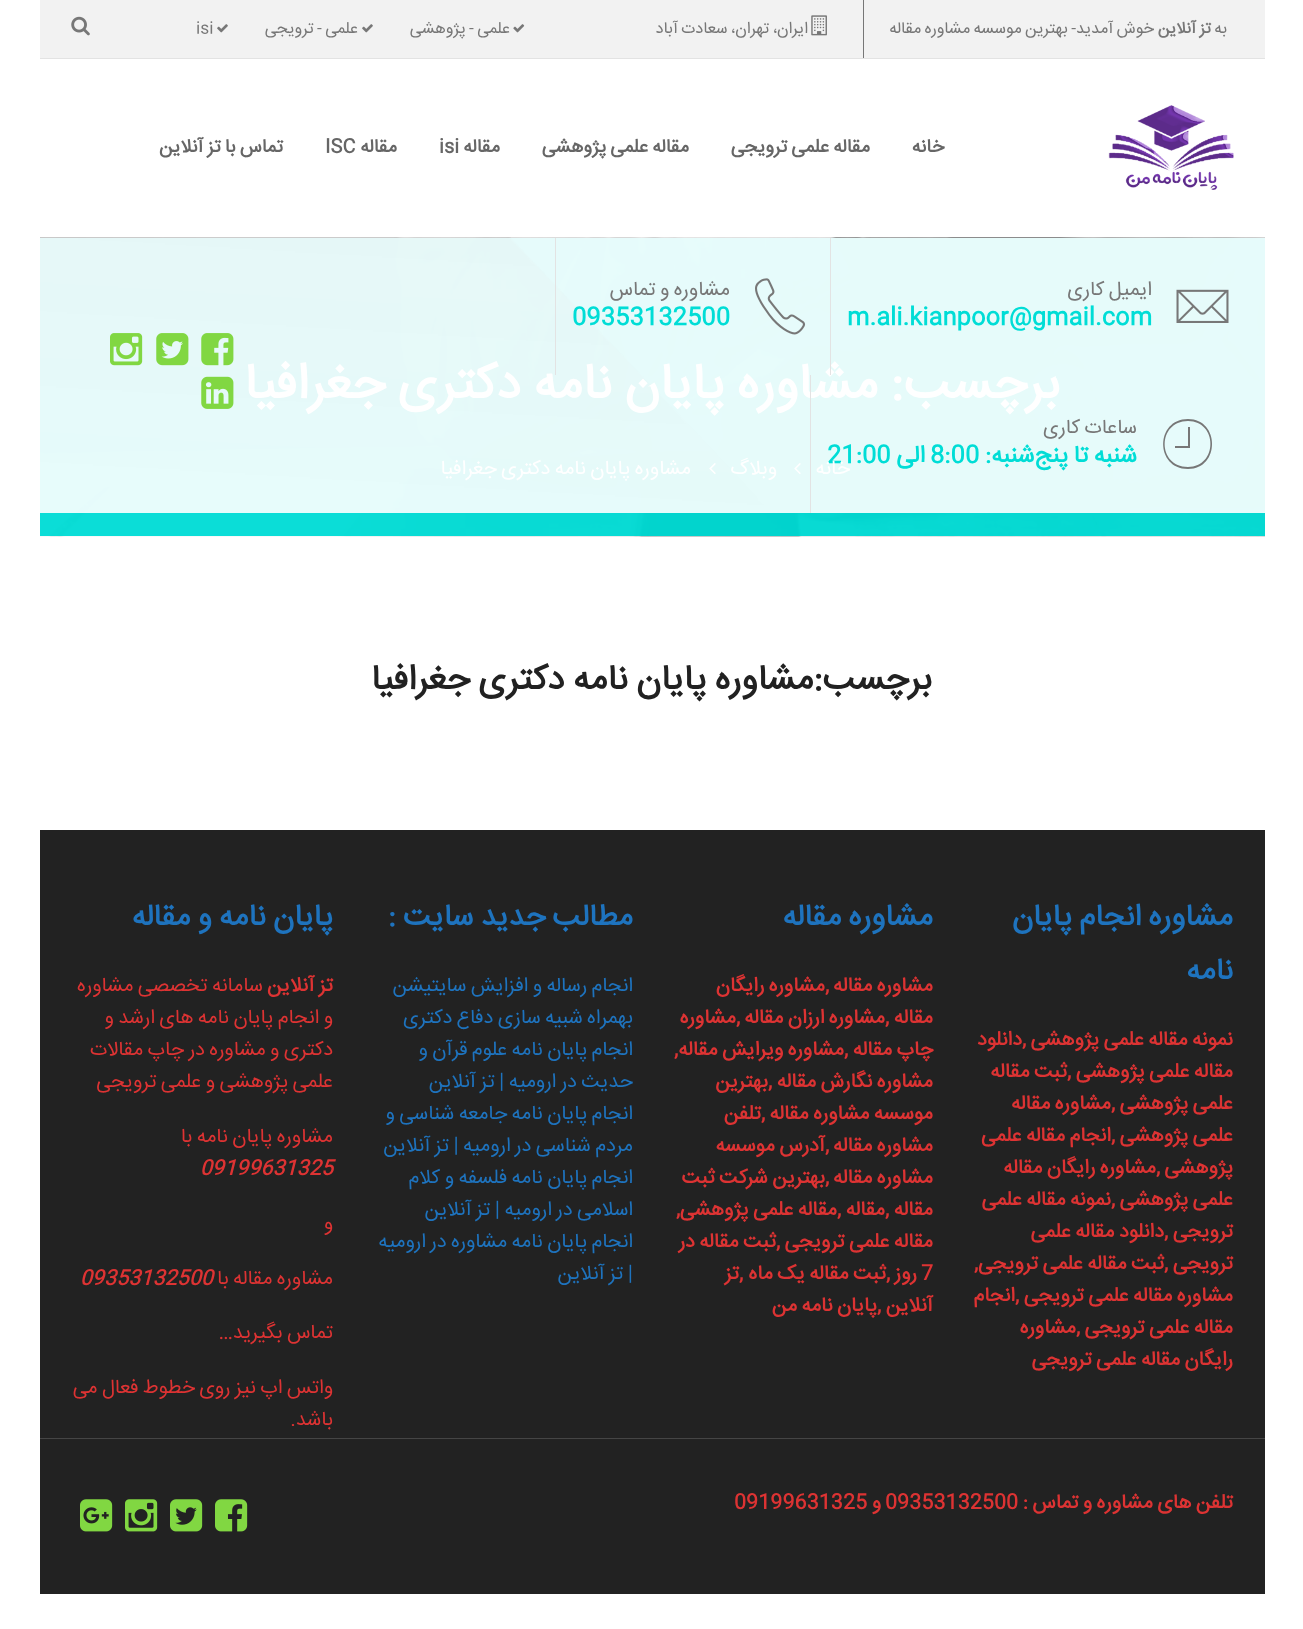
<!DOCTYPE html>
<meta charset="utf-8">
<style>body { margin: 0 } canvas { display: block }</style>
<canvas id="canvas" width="1303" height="1629"></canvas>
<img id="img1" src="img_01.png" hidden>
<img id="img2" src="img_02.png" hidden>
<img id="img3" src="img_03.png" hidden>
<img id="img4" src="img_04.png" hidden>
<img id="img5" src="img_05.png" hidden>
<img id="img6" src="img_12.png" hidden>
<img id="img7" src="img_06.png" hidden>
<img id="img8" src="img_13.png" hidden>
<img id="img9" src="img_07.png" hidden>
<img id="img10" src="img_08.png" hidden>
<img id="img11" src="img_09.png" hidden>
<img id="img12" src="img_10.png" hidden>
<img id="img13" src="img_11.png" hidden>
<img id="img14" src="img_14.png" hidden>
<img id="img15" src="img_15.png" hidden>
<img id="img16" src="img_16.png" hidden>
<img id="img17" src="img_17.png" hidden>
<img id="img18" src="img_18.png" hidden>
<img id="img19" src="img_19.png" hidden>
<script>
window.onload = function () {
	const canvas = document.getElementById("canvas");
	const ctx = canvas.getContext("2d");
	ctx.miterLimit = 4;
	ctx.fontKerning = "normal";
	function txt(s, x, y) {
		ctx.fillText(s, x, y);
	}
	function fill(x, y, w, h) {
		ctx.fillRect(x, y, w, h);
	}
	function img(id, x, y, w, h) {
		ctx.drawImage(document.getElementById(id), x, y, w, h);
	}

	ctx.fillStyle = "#FFFFFF";
	fill(0, 0, 1303, 1629);
	ctx.fillStyle = "#F2F2F2";
	fill(40, 0, 1225, 58);
	ctx.fillStyle = "#E3E3E3";
	fill(40, 58, 1225, 1);
	ctx.fillStyle = "#777777";
	fill(863, 0, 1, 58);
	img("img1", 811, 15, 16, 21);
	img("img2", 513, 24, 12, 9);
	img("img3", 362, 24, 11, 9);
	img("img3", 217, 24, 11, 9);
	img("img4", 71, 16, 19, 20);
	img("img5", 1108, 105, 126, 85);
	img("img6", 40, 237, 1225, 300);
	img("img7", 1176, 289, 53, 34);
	img("img8", 40, 237, 724, 268);
	img("img9", 755, 278, 51, 57);
	ctx.beginPath();
	ctx.moveTo(1188, 419);
	ctx.bezierCurveTo(1155, 419, 1155, 469, 1188, 469);
	ctx.bezierCurveTo(1220, 469, 1220, 419, 1188, 419);
	ctx.closePath();
	ctx.moveTo(1188, 467);
	ctx.bezierCurveTo(1157, 467, 1157, 421, 1188, 421);
	ctx.bezierCurveTo(1218, 421, 1218, 467, 1188, 467);
	ctx.closePath();
	ctx.moveTo(1188, 446);
	ctx.lineTo(1175, 446);
	ctx.lineTo(1175, 448);
	ctx.lineTo(1190, 448);
	ctx.lineTo(1190, 427);
	ctx.lineTo(1188, 427);
	ctx.closePath();
	ctx.fill();
	img("img10", 201, 333, 33, 33);
	img("img11", 156, 333, 33, 33);
	img("img12", 110, 333, 33, 33);
	img("img13", 201, 376, 33, 33);
	img("img14", 794, 463, 7, 12);
	img("img15", 709, 463, 7, 12);
	ctx.fillStyle = "#222222";
	fill(40, 830, 1225, 764);
	ctx.fillStyle = "#454545";
	fill(40, 1438, 1225, 1);
	img("img16", 215, 1499, 33, 33);
	img("img17", 170, 1499, 33, 33);
	img("img18", 125, 1499, 33, 33);
	img("img19", 80, 1499, 33, 33);
	ctx.direction = "rtl";
	ctx.font = "16.25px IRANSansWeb";
	ctx.fillStyle = "#777777";
	txt("به", 1227, 33);
	ctx.wordSpacing = "-1.25px";
	ctx.font = "bold 16.25px IRANSansWeb";
	txt("تز آنلاین", 1211, 33);
	ctx.font = "16.25px IRANSansWeb";
	txt("خوش آمدید- بهترین موسسه مشاوره مقاله", 1154, 33);
	txt("ایران، تهران، سعادت آباد", 808, 33);
	txt("علمی - پژوهشی", 510, 33);
	txt("علمی - ترویجی", 358, 33);
	ctx.wordSpacing = "0px";
	ctx.direction = "ltr";
	txt("isi", 196, 33);
	ctx.direction = "rtl";
	ctx.font = "bold 18.75px IRANSansWeb";
	ctx.fillStyle = "#666666";
	txt("خانه", 944, 152);
	ctx.wordSpacing = "-1.25px";
	txt("مقاله علمی ترویجی", 870, 152);
	txt("مقاله علمی پژوهشی", 689, 152);
	ctx.wordSpacing = "0px";
	txt("مقاله", 500, 152);
	ctx.direction = "ltr";
	txt("isi", 439, 152);
	ctx.direction = "rtl";
	txt("مقاله", 397, 152);
	ctx.direction = "ltr";
	txt("ISC", 325, 152);
	ctx.wordSpacing = "-1.25px";
	ctx.direction = "rtl";
	txt("تماس با تز آنلاین", 283, 152);
	ctx.font = "20px IRANSansWeb";
	ctx.fillStyle = "#777777";
	txt("ایمیل کاری", 1152, 295);
	ctx.wordSpacing = "0px";
	ctx.direction = "ltr";
	ctx.font = "bold 23.75px IRANSansWeb";
	ctx.fillStyle = "#00DDD6";
	txt("m.ali.kianpoor@gmail.com", 847, 324);
	ctx.wordSpacing = "-1.25px";
	ctx.direction = "rtl";
	ctx.font = "20px IRANSansWeb";
	ctx.fillStyle = "#777777";
	txt("مشاوره و تماس", 730, 295);
	ctx.wordSpacing = "0px";
	ctx.direction = "ltr";
	ctx.font = "bold 23.75px IRANSansWeb";
	ctx.fillStyle = "#00DDD6";
	txt("09353132500", 572, 324);
	ctx.wordSpacing = "-1.25px";
	ctx.direction = "rtl";
	ctx.font = "20px IRANSansWeb";
	ctx.fillStyle = "#777777";
	txt("ساعات کاری", 1137, 433);
	ctx.font = "bold 23.75px IRANSansWeb";
	ctx.fillStyle = "#00DDD6";
	txt("شنبه تا پنج‌شنبه:", 1137, 462);
	ctx.wordSpacing = "0px";
	ctx.direction = "ltr";
	txt("8:00", 930, 462);
	ctx.direction = "rtl";
	txt("الی", 925, 462);
	ctx.direction = "ltr";
	txt("21:00", 827, 462);
	ctx.direction = "rtl";
	ctx.font = "bold 50px IRANSansWeb";
	ctx.fillStyle = "#FFFFFF";
	txt("برچسب:", 1060, 398);
	ctx.wordSpacing = "-1.25px";
	txt("مشاوره پایان نامه دکتری جغرافیا", 878, 398);
	ctx.fillStyle = "#E3E3E3";
	fill(810, 375, 1, 138);
	fill(555, 238, 1, 137);
	fill(830, 238, 1, 137);
	ctx.wordSpacing = "0px";
	ctx.font = "20px IRANSansWeb";
	ctx.fillStyle = "#FFFFFF";
	txt("خانه", 850, 474);
	txt("وبلاگ", 777, 474);
	ctx.wordSpacing = "-1.25px";
	txt("مشاوره پایان نامه دکتری جغرافیا", 691, 474);
	ctx.font = "bold 35px IRANSansWeb";
	ctx.fillStyle = "#212121";
	txt("برچسب:مشاوره پایان نامه دکتری جغرافیا", 932, 689);
	ctx.font = "bold 30px IRANSansWeb";
	ctx.fillStyle = "#1E73BE";
	txt("مشاوره انجام پایان", 1233, 925);
	ctx.wordSpacing = "0px";
	txt("نامه", 1233, 979);
	ctx.wordSpacing = "-1.25px";
	ctx.font = "bold 20px IRANSansWeb";
	ctx.fillStyle = "#DD3333";
	txt("نمونه مقاله علمی پژوهشی", 1233, 1045);
	ctx.wordSpacing = "0px";
	ctx.direction = "ltr";
	txt(",", 1022, 1045);
	ctx.direction = "rtl";
	txt("دانلود", 1022, 1045);
	ctx.wordSpacing = "-1.25px";
	txt("مقاله علمی پژوهشی", 1233, 1077);
	ctx.wordSpacing = "0px";
	ctx.direction = "ltr";
	txt(",", 1067, 1077);
	ctx.wordSpacing = "-1.25px";
	ctx.direction = "rtl";
	txt("ثبت مقاله", 1067, 1077);
	txt("علمی پژوهشی", 1233, 1109);
	ctx.wordSpacing = "0px";
	ctx.direction = "ltr";
	txt(",", 1111, 1109);
	ctx.wordSpacing = "-1.25px";
	ctx.direction = "rtl";
	txt("مشاوره مقاله", 1111, 1109);
	txt("علمی پژوهشی", 1233, 1141);
	ctx.wordSpacing = "0px";
	ctx.direction = "ltr";
	txt(",", 1111, 1141);
	ctx.wordSpacing = "-1.25px";
	ctx.direction = "rtl";
	txt("انجام مقاله علمی", 1111, 1141);
	ctx.wordSpacing = "0px";
	txt("پژوهشی", 1233, 1173);
	ctx.direction = "ltr";
	txt(",", 1156, 1173);
	ctx.wordSpacing = "-1.25px";
	ctx.direction = "rtl";
	txt("مشاوره رایگان مقاله", 1156, 1173);
	txt("علمی پژوهشی", 1233, 1205);
	ctx.wordSpacing = "0px";
	ctx.direction = "ltr";
	txt(",", 1111, 1205);
	ctx.wordSpacing = "-1.25px";
	ctx.direction = "rtl";
	txt("نمونه مقاله علمی", 1111, 1205);
	ctx.wordSpacing = "0px";
	txt("ترویجی", 1233, 1237);
	ctx.direction = "ltr";
	txt(",", 1164, 1237);
	ctx.wordSpacing = "-1.25px";
	ctx.direction = "rtl";
	txt("دانلود مقاله علمی", 1164, 1237);
	ctx.wordSpacing = "0px";
	txt("ترویجی", 1233, 1269);
	ctx.direction = "ltr";
	txt(",", 974, 1269);
	txt(",", 1164, 1269);
	ctx.wordSpacing = "-1.25px";
	ctx.direction = "rtl";
	txt("ثبت مقاله علمی ترویجی", 1164, 1269);
	txt("مشاوره مقاله علمی ترویجی", 1233, 1301);
	ctx.wordSpacing = "0px";
	ctx.direction = "ltr";
	txt(",", 1015, 1301);
	ctx.direction = "rtl";
	txt("انجام", 1015, 1301);
	ctx.wordSpacing = "-1.25px";
	txt("مقاله علمی ترویجی", 1233, 1333);
	ctx.wordSpacing = "0px";
	ctx.direction = "ltr";
	txt(",", 1076, 1333);
	ctx.direction = "rtl";
	txt("مشاوره", 1076, 1333);
	ctx.wordSpacing = "-1.25px";
	txt("رایگان مقاله علمی ترویجی", 1233, 1365);
	ctx.font = "bold 30px IRANSansWeb";
	ctx.fillStyle = "#1E73BE";
	txt("مشاوره مقاله", 933, 925);
	ctx.font = "bold 20px IRANSansWeb";
	ctx.fillStyle = "#DD3333";
	txt("مشاوره مقاله", 933, 991);
	ctx.wordSpacing = "0px";
	ctx.direction = "ltr";
	txt(",", 825, 991);
	ctx.wordSpacing = "-1.25px";
	ctx.direction = "rtl";
	txt("مشاوره رایگان", 825, 991);
	ctx.wordSpacing = "0px";
	txt("مقاله", 933, 1023);
	txt("مشاوره", 736, 1023);
	ctx.direction = "ltr";
	txt(",", 885, 1023);
	ctx.wordSpacing = "-1.25px";
	ctx.direction = "rtl";
	txt("مشاوره ارزان مقاله", 885, 1023);
	ctx.wordSpacing = "0px";
	ctx.direction = "ltr";
	txt(",", 736, 1023);
	ctx.wordSpacing = "-1.25px";
	ctx.direction = "rtl";
	txt("چاپ مقاله", 933, 1055);
	ctx.wordSpacing = "0px";
	ctx.direction = "ltr";
	txt(",", 674, 1055);
	txt(",", 844, 1055);
	ctx.wordSpacing = "-1.25px";
	ctx.direction = "rtl";
	txt("مشاوره ویرایش مقاله", 844, 1055);
	txt("مشاوره نگارش مقاله", 933, 1087);
	ctx.wordSpacing = "0px";
	ctx.direction = "ltr";
	txt(",", 768, 1087);
	ctx.direction = "rtl";
	txt("بهترین", 768, 1087);
	ctx.wordSpacing = "-1.25px";
	txt("موسسه مشاوره مقاله", 933, 1119);
	ctx.wordSpacing = "0px";
	ctx.direction = "ltr";
	txt(",", 761, 1119);
	ctx.direction = "rtl";
	txt("تلفن", 761, 1119);
	ctx.wordSpacing = "-1.25px";
	txt("مشاوره مقاله", 933, 1151);
	ctx.wordSpacing = "0px";
	ctx.direction = "ltr";
	txt(",", 825, 1151);
	ctx.wordSpacing = "-1.25px";
	ctx.direction = "rtl";
	txt("آدرس موسسه", 825, 1151);
	txt("مشاوره مقاله", 933, 1183);
	ctx.wordSpacing = "0px";
	ctx.direction = "ltr";
	txt(",", 825, 1183);
	ctx.wordSpacing = "-1.25px";
	ctx.direction = "rtl";
	txt("بهترین شرکت ثبت", 825, 1183);
	ctx.wordSpacing = "0px";
	txt("مقاله", 933, 1215);
	txt("مقاله", 885, 1215);
	ctx.direction = "ltr";
	txt(",", 885, 1215);
	txt(",", 837, 1215);
	ctx.wordSpacing = "-1.25px";
	ctx.direction = "rtl";
	txt("مقاله علمی پژوهشی", 837, 1215);
	ctx.wordSpacing = "0px";
	ctx.direction = "ltr";
	txt(",", 676, 1215);
	ctx.wordSpacing = "-1.25px";
	ctx.direction = "rtl";
	txt("مقاله علمی ترویجی", 933, 1247);
	ctx.wordSpacing = "0px";
	ctx.direction = "ltr";
	txt(",", 776, 1247);
	ctx.wordSpacing = "-1.25px";
	ctx.direction = "rtl";
	txt("ثبت مقاله در", 776, 1247);
	ctx.wordSpacing = "0px";
	ctx.direction = "ltr";
	txt("7", 921, 1279);
	ctx.direction = "rtl";
	txt("روز", 917, 1279);
	ctx.direction = "ltr";
	txt(",", 739, 1279);
	ctx.direction = "rtl";
	txt("تز", 739, 1279);
	ctx.direction = "ltr";
	txt(",", 886, 1279);
	ctx.wordSpacing = "-1.25px";
	ctx.direction = "rtl";
	txt("ثبت مقاله یک ماه", 886, 1279);
	ctx.wordSpacing = "0px";
	txt("آنلاین", 933, 1311);
	ctx.direction = "ltr";
	txt(",", 877, 1311);
	ctx.wordSpacing = "-1.25px";
	ctx.direction = "rtl";
	txt("پایان نامه من", 877, 1311);
	ctx.font = "bold 30px IRANSansWeb";
	ctx.fillStyle = "#1E73BE";
	txt("مطالب جدید سایت :", 633, 925);
	ctx.font = "20px IRANSansWeb";
	txt("انجام رساله و افزایش سایتیشن", 633, 991);
	txt("بهمراه شبیه سازی دفاع دکتری", 633, 1023);
	txt("انجام پایان نامه علوم قرآن و", 633, 1055);
	txt("حدیث در ارومیه | تز آنلاین", 633, 1087);
	txt("انجام پایان نامه جامعه شناسی و", 633, 1119);
	txt("مردم شناسی در ارومیه | تز آنلاین", 633, 1151);
	txt("انجام پایان نامه فلسفه و کلام", 633, 1183);
	txt("اسلامی در ارومیه | تز آنلاین", 633, 1215);
	txt("انجام پایان نامه مشاوره در ارومیه", 633, 1247);
	txt("| تز آنلاین", 633, 1279);
	ctx.font = "bold 30px IRANSansWeb";
	txt("پایان نامه و مقاله", 333, 925);
	ctx.font = "bold 20px IRANSansWeb";
	ctx.fillStyle = "#DD3333";
	txt("تز آنلاین", 333, 991);
	ctx.font = "20px IRANSansWeb";
	txt("سامانه تخصصی مشاوره", 263, 991);
	txt("و انجام پایان نامه های ارشد و", 333, 1023);
	txt("دکتری و مشاوره در", 333, 1055);
	txt("چاپ مقالات", 184, 1055);
	txt("علمی پژوهشی", 333, 1087);
	txt("و علمی ترویجی", 215, 1087);
	txt("مشاوره پایان نامه با", 333, 1142);
	ctx.wordSpacing = "0px";
	ctx.direction = "ltr";
	ctx.font = "italic bold 20px IRANSansWeb";
	txt("09199631325", 200, 1174);
	ctx.direction = "rtl";
	ctx.font = "20px IRANSansWeb";
	txt("و", 333, 1229);
	ctx.wordSpacing = "-1.25px";
	txt("مشاوره مقاله با", 333, 1284);
	ctx.wordSpacing = "0px";
	ctx.direction = "ltr";
	ctx.font = "italic bold 20px IRANSansWeb";
	txt("09353132500", 80, 1284);
	ctx.wordSpacing = "-1.25px";
	ctx.direction = "rtl";
	ctx.font = "20px IRANSansWeb";
	txt("تماس بگیرید…", 333, 1338);
	txt("واتس اپ نیز روی خطوط فعال می", 333, 1393);
	ctx.wordSpacing = "0px";
	txt("باشد.", 333, 1425);
	ctx.wordSpacing = "-1.25px";
	ctx.font = "bold 20px IRANSansWeb";
	txt("تلفن های مشاوره و تماس :", 1233, 1508);
	ctx.wordSpacing = "0px";
	ctx.direction = "ltr";
	txt("09353132500", 885, 1508);
	ctx.direction = "rtl";
	txt("و", 881, 1508);
	ctx.direction = "ltr";
	txt("09199631325", 734, 1508);
};
</script>
